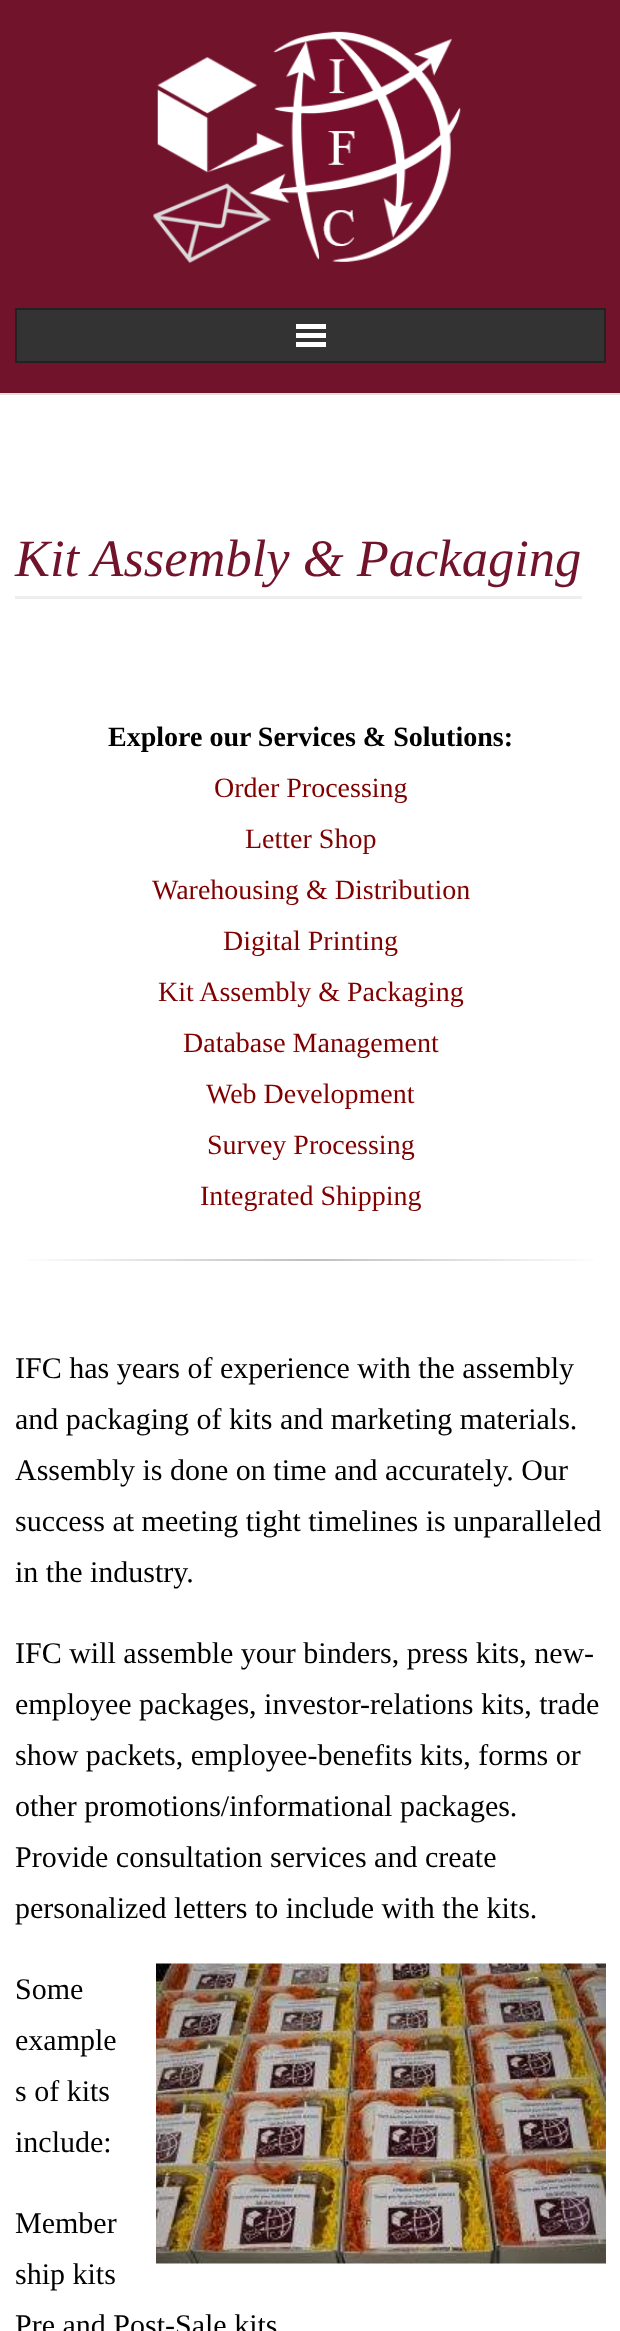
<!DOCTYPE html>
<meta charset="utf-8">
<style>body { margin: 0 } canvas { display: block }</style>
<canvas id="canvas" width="620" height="2331"></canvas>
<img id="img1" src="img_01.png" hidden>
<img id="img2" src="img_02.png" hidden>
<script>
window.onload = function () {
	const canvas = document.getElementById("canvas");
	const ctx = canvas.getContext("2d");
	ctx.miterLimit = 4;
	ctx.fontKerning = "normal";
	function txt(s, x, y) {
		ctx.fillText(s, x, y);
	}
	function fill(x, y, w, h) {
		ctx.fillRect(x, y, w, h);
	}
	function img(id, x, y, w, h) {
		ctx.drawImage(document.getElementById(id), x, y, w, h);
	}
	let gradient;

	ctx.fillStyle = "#FFFFFF";
	fill(0, 0, 620, 2331);
	ctx.fillStyle = "#72132C";
	fill(0, 0, 620, 393);
	ctx.fillStyle = "#E0E0E0";
	fill(0, 393, 620, 2);
	img("img1", 153, 31, 323, 232);
	ctx.fillStyle = "#333333";
	ctx.beginPath();
	ctx.rect(16, 309, 589, 53);
	ctx.fill();
	ctx.strokeStyle = "#222222";
	ctx.lineWidth = 2;
	ctx.stroke();
	ctx.fillStyle = "#FFFFFF";
	fill(296, 324, 30, 5);
	fill(296, 333, 30, 5);
	fill(296, 342, 30, 5);
	ctx.fillStyle = "#EEEEEE";
	fill(15, 596, 567, 3);
	gradient = ctx.createLinearGradient(15, 1259, 606, 1259);
	gradient.addColorStop(0, "#FFFFFF");
	gradient.addColorStop(0.5, "#BFBFBF");
	gradient.addColorStop(1, "#FFFFFF");
	ctx.fillStyle = gradient;
	fill(27, 1259, 567, 2);
	img("img2", 156, 1963, 450, 301);
	ctx.font = "italic 52.5px Liberation Serif";
	ctx.fillStyle = "#72132C";
	txt("Kit Assembly & Packaging", 15, 576);
	ctx.font = "bold 28px Liberation Serif";
	ctx.fillStyle = "#000000";
	txt("Explore our Services & Solutions:", 108, 746);
	ctx.font = "28px Liberation Serif";
	ctx.fillStyle = "#800000";
	txt("Order Processing", 214, 797);
	txt("Letter Shop", 245, 848);
	txt("Warehousing & Distribution", 152, 899);
	txt("Digital Printing", 223, 950);
	txt("Kit Assembly & Packaging", 158, 1001);
	txt("Database Management", 183, 1052);
	txt("Web Development", 206, 1103);
	txt("Survey Processing", 207, 1154);
	txt("Integrated Shipping", 200, 1205);
	ctx.font = "30px Liberation Serif";
	ctx.fillStyle = "#000000";
	txt("IFC has years of experience with the assembly", 15, 1378);
	txt("and packaging of kits and marketing materials.", 15, 1429);
	txt("Assembly is done on time and accurately. Our", 15, 1480);
	txt("success at meeting tight timelines is unparalleled", 15, 1531);
	txt("in the industry.", 15, 1582);
	txt("IFC will assemble your binders, press kits, new-", 15, 1663);
	txt("employee packages, investor-relations kits, trade", 15, 1714);
	txt("show packets, employee-benefits kits, forms or", 15, 1765);
	txt("other promotions/informational packages.", 15, 1816);
	txt("Provide consultation services and create", 15, 1867);
	txt("personalized letters to include with the kits.", 15, 1918);
	txt("Some", 15, 1999);
	txt("example", 15, 2050);
	txt("s of kits", 15, 2101);
	txt("include:", 15, 2152);
	txt("Member", 15, 2233);
	txt("ship kits", 15, 2284);
	txt("Pre and Post-Sale kits", 15, 2335);
};
</script>
